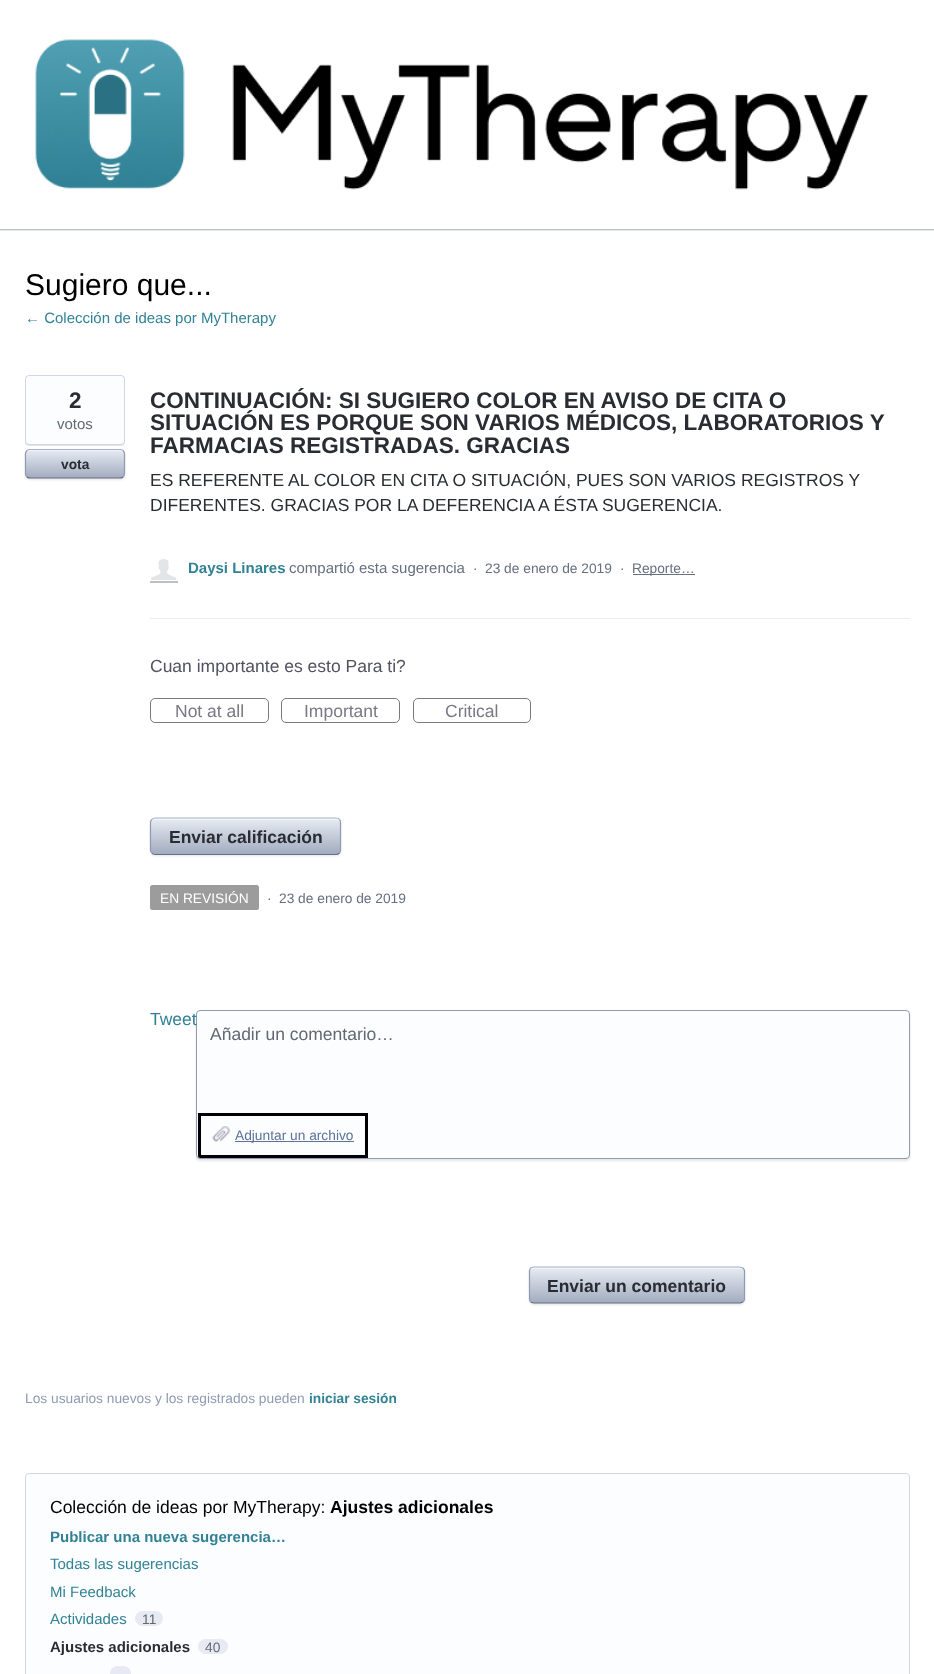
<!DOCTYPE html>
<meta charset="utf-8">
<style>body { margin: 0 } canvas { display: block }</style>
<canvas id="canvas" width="934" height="1674"></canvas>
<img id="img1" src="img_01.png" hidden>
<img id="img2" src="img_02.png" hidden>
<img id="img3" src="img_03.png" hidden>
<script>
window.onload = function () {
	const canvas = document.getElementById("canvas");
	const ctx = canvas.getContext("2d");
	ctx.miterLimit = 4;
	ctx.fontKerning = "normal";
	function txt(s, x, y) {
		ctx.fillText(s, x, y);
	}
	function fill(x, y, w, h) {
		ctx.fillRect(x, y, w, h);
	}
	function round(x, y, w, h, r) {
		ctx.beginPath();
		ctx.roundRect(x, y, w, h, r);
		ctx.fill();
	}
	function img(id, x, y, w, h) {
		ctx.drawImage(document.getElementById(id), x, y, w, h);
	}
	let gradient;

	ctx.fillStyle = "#FFFFFF";
	fill(0, 0, 934, 1674);
	ctx.fillStyle = "#BFBFBF";
	fill(0, 229, 934, 1);
	img("img1", 35, 39, 833, 151);
	ctx.fillStyle = "#E3E8F2";
	fill(0, 230, 934, 1);
	ctx.fillStyle = "rgba(0, 0, 0, 0.1)";
	ctx.filter = "blur(0.5px)";
	ctx.beginPath();
	ctx.roundRect(25, 376, 100, 70, 4);
	ctx.fill();
	ctx.filter = "none";
	ctx.fillStyle = "#FCFDFF";
	ctx.beginPath();
	ctx.roundRect(25.5, 375.5, 99, 69, 3.5);
	ctx.fill();
	ctx.strokeStyle = "#CFD7E6";
	ctx.stroke();
	ctx.fillStyle = "rgba(0, 0, 0, 0.1)";
	ctx.filter = "blur(1px)";
	ctx.beginPath();
	ctx.roundRect(25, 450, 100, 30, 5);
	ctx.fill();
	ctx.filter = "none";
	gradient = ctx.createLinearGradient(26, 450, 26, 478);
	gradient.addColorStop(0, "#E6EAF2");
	gradient.addColorStop(1, "#A2ACBF");
	ctx.fillStyle = gradient;
	round(26, 450, 98, 28, 4);
	ctx.fillStyle = "rgba(255, 255, 255, 0.5)";
	ctx.beginPath();
	ctx.moveTo(30, 451);
	ctx.lineTo(120, 451);
	ctx.bezierCurveTo(122, 451, 124, 453, 124, 455);
	ctx.bezierCurveTo(124, 446, 109, 450, 105, 450);
	ctx.lineTo(45, 450);
	ctx.bezierCurveTo(41, 450, 26, 446, 26, 455);
	ctx.bezierCurveTo(26, 453, 28, 451, 30, 451);
	ctx.closePath();
	ctx.fill();
	ctx.beginPath();
	ctx.moveTo(27, 450.5);
	ctx.bezierCurveTo(27.5, 450, 29, 449.5, 30, 449.5);
	ctx.lineTo(120, 449.5);
	ctx.bezierCurveTo(121, 449.5, 122.5, 450, 123, 450.5);
	ctx.strokeStyle = "#A3B1CC";
	ctx.lineWidth = 1.2;
	ctx.stroke();
	ctx.beginPath();
	ctx.moveTo(123, 450.5);
	ctx.bezierCurveTo(124, 451.5, 124.5, 452.5, 124.5, 454);
	ctx.lineTo(124.5, 474);
	ctx.bezierCurveTo(124.5, 475, 124, 476, 123, 477);
	ctx.strokeStyle = "#8F9BB3";
	ctx.stroke();
	ctx.beginPath();
	ctx.moveTo(123, 477);
	ctx.bezierCurveTo(122.5, 477.5, 121, 478, 120, 478);
	ctx.lineTo(30, 478);
	ctx.bezierCurveTo(29, 478, 27.5, 477.5, 27, 477);
	ctx.strokeStyle = "#666F80";
	ctx.stroke();
	ctx.beginPath();
	ctx.moveTo(27, 477);
	ctx.bezierCurveTo(26, 476, 25.5, 475, 25.5, 474);
	ctx.lineTo(25.5, 454);
	ctx.bezierCurveTo(25.5, 452.5, 26, 451.5, 27, 450.5);
	ctx.strokeStyle = "#8F9BB3";
	ctx.stroke();
	ctx.save();
	ctx.beginPath();
	ctx.moveTo(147, 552);
	ctx.lineTo(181, 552);
	ctx.lineTo(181, 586);
	ctx.lineTo(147, 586);
	ctx.closePath();
	ctx.moveTo(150, 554);
	ctx.lineTo(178, 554);
	ctx.lineTo(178, 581);
	ctx.lineTo(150, 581);
	ctx.closePath();
	ctx.clip("evenodd");
	ctx.fillStyle = "rgba(0, 0, 0, 0.25)";
	ctx.filter = "blur(0.5px)";
	ctx.beginPath();
	ctx.rect(150, 555, 28, 28);
	ctx.fill();
	ctx.filter = "none";
	ctx.restore();
	ctx.strokeStyle = "#FFFFFF";
	ctx.lineWidth = 1;
	ctx.strokeRect(150.5, 554.5, 27, 26);
	img("img2", 151, 559, 26, 21);
	ctx.fillStyle = "#666F80";
	fill(633, 574, 62, 1);
	ctx.fillStyle = "#EBEBF1";
	fill(150, 618, 760, 1);
	ctx.beginPath();
	ctx.roundRect(150.5, 698.5, 118, 24, 4.5);
	ctx.strokeStyle = "#797986";
	ctx.stroke();
	ctx.beginPath();
	ctx.roundRect(281.5, 698.5, 118, 24, 4.5);
	ctx.stroke();
	ctx.beginPath();
	ctx.roundRect(413.5, 698.5, 117, 24, 4.5);
	ctx.stroke();
	ctx.fillStyle = "rgba(0, 0, 0, 0.1)";
	ctx.filter = "blur(1px)";
	ctx.beginPath();
	ctx.roundRect(150, 819, 191, 37, 5);
	ctx.fill();
	ctx.filter = "none";
	gradient = ctx.createLinearGradient(151, 819, 151, 854);
	gradient.addColorStop(0, "#E6EAF2");
	gradient.addColorStop(1, "#A2ACBF");
	ctx.fillStyle = gradient;
	round(151, 819, 189, 35, 4);
	ctx.fillStyle = "rgba(255, 255, 255, 0.5)";
	ctx.beginPath();
	ctx.moveTo(155, 820);
	ctx.lineTo(336, 820);
	ctx.bezierCurveTo(338, 820, 340, 822, 340, 824);
	ctx.bezierCurveTo(340, 821, 339, 819, 336, 819);
	ctx.lineTo(154, 819);
	ctx.bezierCurveTo(152, 820, 151, 822, 151, 824);
	ctx.bezierCurveTo(151, 822, 153, 820, 155, 820);
	ctx.closePath();
	ctx.fill();
	ctx.beginPath();
	ctx.moveTo(152, 819.5);
	ctx.bezierCurveTo(152.5, 818.5, 154, 818, 155, 818);
	ctx.lineTo(336, 818);
	ctx.bezierCurveTo(337.5, 818, 338.5, 818.5, 339.5, 819.5);
	ctx.strokeStyle = "#A3B1CC";
	ctx.lineWidth = 1.2;
	ctx.stroke();
	ctx.beginPath();
	ctx.moveTo(339.5, 819.5);
	ctx.bezierCurveTo(340, 820, 340.5, 821.5, 340.5, 822.5);
	ctx.lineTo(340.5, 850);
	ctx.bezierCurveTo(340.5, 851, 340, 852.5, 339.5, 853);
	ctx.strokeStyle = "#8F9BB3";
	ctx.stroke();
	ctx.beginPath();
	ctx.moveTo(339.5, 853);
	ctx.bezierCurveTo(338.5, 854, 337.5, 854.5, 336, 854.5);
	ctx.lineTo(155, 854.5);
	ctx.bezierCurveTo(154, 854.5, 152.5, 854, 152, 853);
	ctx.strokeStyle = "#666F80";
	ctx.stroke();
	ctx.beginPath();
	ctx.moveTo(152, 853);
	ctx.bezierCurveTo(151, 852.5, 150.5, 851, 150.5, 850);
	ctx.lineTo(150.5, 822.5);
	ctx.bezierCurveTo(150.5, 821.5, 151, 820, 152, 819.5);
	ctx.strokeStyle = "#8F9BB3";
	ctx.stroke();
	ctx.fillStyle = "#9C9C9C";
	round(150, 885, 109, 25, 2.5);
	ctx.fillStyle = "rgba(0, 0, 0, 0.1)";
	ctx.filter = "blur(1px)";
	ctx.beginPath();
	ctx.roundRect(196, 1013, 714, 148, 4);
	ctx.fill();
	ctx.filter = "none";
	ctx.fillStyle = "#FCFDFF";
	ctx.beginPath();
	ctx.roundRect(196.5, 1010.5, 713, 148, 3.5);
	ctx.fill();
	ctx.lineWidth = 1;
	ctx.stroke();
	img("img3", 212, 1126, 19, 16);
	ctx.fillStyle = "#000000";
	ctx.beginPath();
	ctx.moveTo(198, 1113);
	ctx.lineTo(198, 1156);
	ctx.bezierCurveTo(198, 1157, 199, 1158, 200, 1158);
	ctx.lineTo(368, 1158);
	ctx.lineTo(368, 1113);
	ctx.closePath();
	ctx.moveTo(201, 1116);
	ctx.lineTo(201, 1155);
	ctx.lineTo(365, 1155);
	ctx.lineTo(365, 1116);
	ctx.closePath();
	ctx.fill("evenodd");
	ctx.fillStyle = "#5D7298";
	fill(235, 1141, 119, 1);
	ctx.fillStyle = "rgba(0, 0, 0, 0.1)";
	ctx.filter = "blur(1px)";
	ctx.beginPath();
	ctx.roundRect(529, 1268, 216, 37, 5);
	ctx.fill();
	ctx.filter = "none";
	gradient = ctx.createLinearGradient(530, 1268, 530, 1303);
	gradient.addColorStop(0, "#E6EAF2");
	gradient.addColorStop(1, "#A2ACBF");
	ctx.fillStyle = gradient;
	round(530, 1268, 214, 35, 4);
	ctx.fillStyle = "rgba(255, 255, 255, 0.5)";
	ctx.beginPath();
	ctx.moveTo(534, 1269);
	ctx.lineTo(740, 1269);
	ctx.bezierCurveTo(742, 1269, 744, 1270, 744, 1272);
	ctx.bezierCurveTo(744, 1270, 742, 1268, 740, 1268);
	ctx.lineTo(534, 1268);
	ctx.bezierCurveTo(532, 1268, 530, 1270, 530, 1272);
	ctx.bezierCurveTo(530, 1270, 532, 1269, 534, 1269);
	ctx.closePath();
	ctx.fill();
	ctx.beginPath();
	ctx.moveTo(530.5, 1268);
	ctx.lineTo(533.5, 1267);
	ctx.lineTo(705.5, 1267);
	ctx.lineTo(740, 1267);
	ctx.lineTo(743, 1268);
	ctx.strokeStyle = "#A3B1CC";
	ctx.lineWidth = 1.2;
	ctx.stroke();
	ctx.beginPath();
	ctx.moveTo(743, 1268);
	ctx.bezierCurveTo(744, 1269, 744.5, 1270, 744.5, 1271);
	ctx.lineTo(744.5, 1299);
	ctx.bezierCurveTo(744.5, 1300, 744, 1301, 743, 1302);
	ctx.strokeStyle = "#8F9BB3";
	ctx.stroke();
	ctx.beginPath();
	ctx.moveTo(743, 1302);
	ctx.lineTo(740, 1303);
	ctx.lineTo(533.5, 1303);
	ctx.lineTo(530.5, 1302);
	ctx.strokeStyle = "#666F80";
	ctx.stroke();
	ctx.beginPath();
	ctx.moveTo(530.5, 1302);
	ctx.bezierCurveTo(530, 1301, 529.5, 1300, 529.5, 1299);
	ctx.lineTo(529.5, 1271);
	ctx.bezierCurveTo(529.5, 1270, 530, 1269, 530.5, 1268);
	ctx.strokeStyle = "#8F9BB3";
	ctx.stroke();
	ctx.fillStyle = "#FCFDFF";
	ctx.beginPath();
	ctx.roundRect(25.5, 1473.5, 884, 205, 3.5);
	ctx.fill();
	ctx.strokeStyle = "#CFD7E6";
	ctx.lineWidth = 1;
	ctx.stroke();
	ctx.fillStyle = "#E7EAF2";
	round(135, 1611, 28, 15, 7.5);
	round(198, 1639, 30, 15, 7.5);
	round(110, 1666, 21, 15, 7.5);
	ctx.font = "30px Liberation Sans";
	ctx.fillStyle = "#000000";
	txt("Sugiero que...", 25, 295);
	ctx.font = "15px Liberation Sans";
	ctx.fillStyle = "#318294";
	txt("← Colección de ideas por MyTherapy", 25, 323);
	ctx.font = "bold 22.5px Liberation Sans";
	ctx.fillStyle = "#292C33";
	txt("2", 69, 408);
	ctx.font = "15px Liberation Sans";
	ctx.fillStyle = "#616973";
	txt("votos", 57, 429);
	ctx.font = "bold 13.75px Liberation Sans";
	ctx.fillStyle = "#292C33";
	txt("vota", 61, 469);
	ctx.font = "bold 22.5px Liberation Sans";
	txt("CONTINUACIÓN: SI SUGIERO COLOR EN AVISO DE CITA O", 150, 408);
	txt("SITUACIÓN ES PORQUE SON VARIOS MÉDICOS, LABORATORIOS Y", 150, 430);
	txt("FARMACIAS REGISTRADAS. GRACIAS", 150, 453);
	ctx.font = "17.5px Liberation Sans";
	txt("ES REFERENTE AL COLOR EN CITA O SITUACIÓN, PUES SON VARIOS REGISTROS Y", 150, 486);
	txt("DIFERENTES. GRACIAS POR LA DEFERENCIA A ÉSTA SUGERENCIA.", 150, 511);
	ctx.font = "bold 15px Liberation Sans";
	ctx.fillStyle = "#318294";
	txt("Daysi Linares", 188, 573);
	ctx.font = "15px Liberation Sans";
	ctx.fillStyle = "#666F80";
	txt("compartió esta sugerencia", 289, 573);
	ctx.font = "13.75px Liberation Sans";
	ctx.fillStyle = "#616973";
	txt("·", 473, 573);
	ctx.fillStyle = "#666F80";
	txt("23 de enero de 2019", 485, 573);
	ctx.fillStyle = "#616973";
	txt("·", 620, 573);
	ctx.fillStyle = "#666F80";
	txt("Reporte…", 632, 573);
	ctx.font = "17.5px Liberation Sans";
	ctx.fillStyle = "#525260";
	txt("Cuan importante es esto Para ti?", 150, 672);
	ctx.fillStyle = "#797986";
	txt("Not at all", 175, 717);
	txt("Important", 304, 717);
	txt("Critical", 445, 717);
	ctx.font = "bold 17.5px Liberation Sans";
	ctx.fillStyle = "#292C33";
	txt("Enviar calificación", 169, 843);
	ctx.font = "13.75px Liberation Sans";
	ctx.fillStyle = "#FFFFFF";
	txt("EN REVISIÓN", 160, 903);
	ctx.fillStyle = "#616973";
	txt("·", 267, 903);
	ctx.fillStyle = "#666F80";
	txt("23 de enero de 2019", 279, 903);
	ctx.font = "17.5px Liberation Sans";
	ctx.fillStyle = "#318294";
	txt("Tweet", 150, 1025);
	ctx.fillStyle = "#616973";
	txt("Añadir un comentario…", 210, 1040);
	ctx.font = "13.75px Liberation Sans";
	ctx.fillStyle = "#5D7298";
	txt("Adjuntar un archivo", 235, 1140);
	ctx.font = "bold 17.5px Liberation Sans";
	ctx.fillStyle = "#292C33";
	txt("Enviar un comentario", 547, 1292);
	ctx.font = "13.75px Liberation Sans";
	ctx.fillStyle = "#8F9BB3";
	txt("Los usuarios nuevos y los registrados pueden", 25, 1403);
	ctx.font = "bold 13.75px Liberation Sans";
	ctx.fillStyle = "#318294";
	txt("iniciar sesión", 309, 1403);
	ctx.font = "17.5px Liberation Sans";
	ctx.fillStyle = "#000000";
	txt("Colección de ideas por MyTherapy:", 50, 1513);
	ctx.font = "bold 17.5px Liberation Sans";
	txt("Ajustes adicionales", 330, 1513);
	ctx.font = "bold 15px Liberation Sans";
	ctx.fillStyle = "#318294";
	txt("Publicar una nueva sugerencia…", 50, 1542);
	ctx.font = "15px Liberation Sans";
	txt("Todas las sugerencias", 50, 1569);
	txt("Mi Feedback", 50, 1597);
	txt("Actividades", 50, 1624);
	ctx.font = "13.75px Liberation Sans";
	ctx.fillStyle = "#616973";
	txt("11", 142, 1624);
	ctx.font = "bold 15px Liberation Sans";
	ctx.fillStyle = "#292C33";
	txt("Ajustes adicionales", 50, 1652);
	ctx.font = "13.75px Liberation Sans";
	ctx.fillStyle = "#616973";
	txt("40", 205, 1652);
};
</script>
